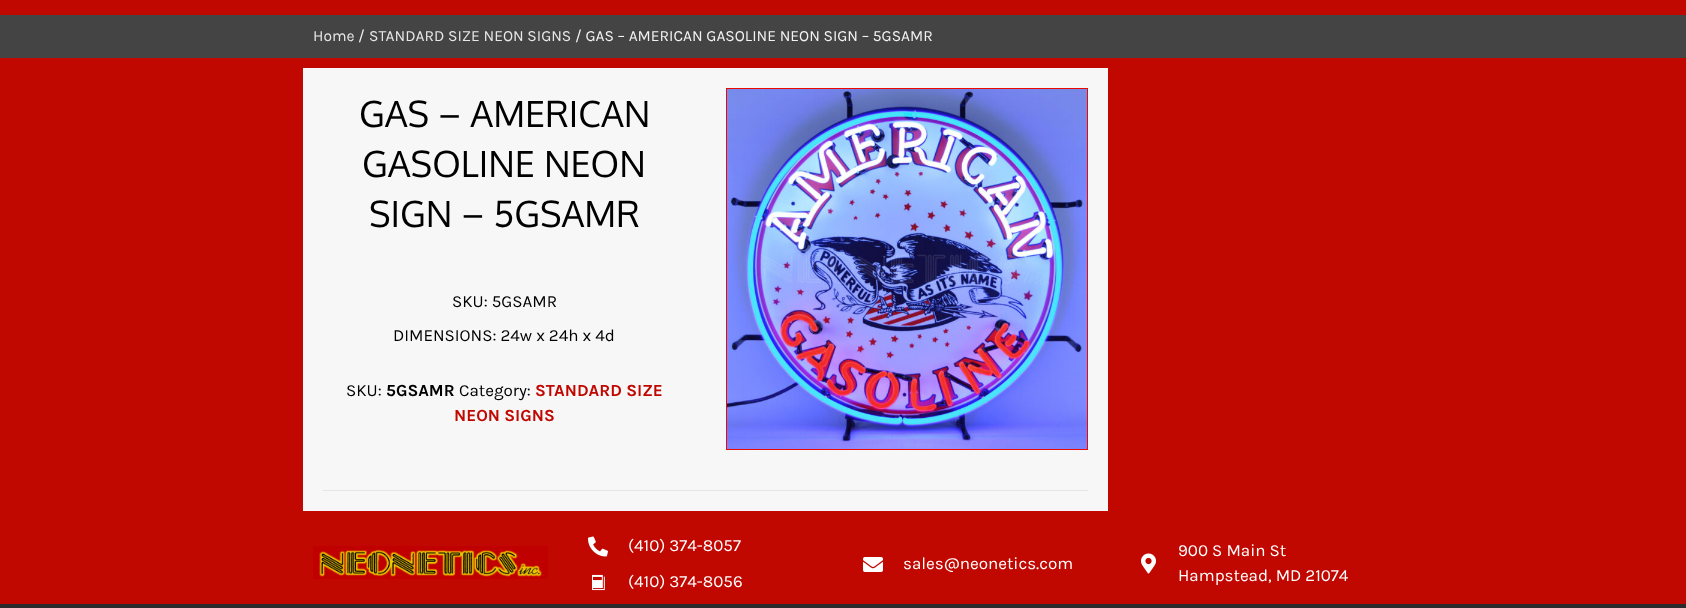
<!DOCTYPE html>
<meta charset="utf-8">
<style>body { margin: 0 } canvas { display: block }</style>
<canvas id="canvas" width="1686" height="608"></canvas>
<img id="img1" src="img_01.png" hidden>
<img id="img2" src="img_02.png" hidden>
<img id="img3" src="img_03.png" hidden>
<img id="img4" src="img_04.png" hidden>
<img id="img5" src="img_05.png" hidden>
<img id="img6" src="img_06.png" hidden>
<script>
window.onload = function () {
	const canvas = document.getElementById("canvas");
	const ctx = canvas.getContext("2d");
	ctx.miterLimit = 4;
	ctx.fontKerning = "normal";
	function txt(s, x, y) {
		ctx.fillText(s, x, y);
	}
	function fill(x, y, w, h) {
		ctx.fillRect(x, y, w, h);
	}
	function img(id, x, y, w, h) {
		ctx.drawImage(document.getElementById(id), x, y, w, h);
	}

	ctx.fillStyle = "#C00700";
	fill(0, 0, 1686, 608);
	ctx.fillStyle = "#444444";
	fill(0, 15, 1686, 43);
	ctx.fillStyle = "#F7F7F7";
	fill(303, 68, 805, 443);
	ctx.strokeStyle = "#EE0900";
	ctx.strokeRect(726.5, 88.5, 361, 361);
	img("img1", 727, 89, 360, 360);
	ctx.fillStyle = "#E5E5E5";
	fill(323, 490, 765, 1);
	img("img2", 313, 546, 235, 33);
	img("img3", 588, 536, 20, 21);
	img("img4", 592, 574, 13, 17);
	img("img5", 863, 557, 20, 15);
	img("img6", 1141, 553, 15, 21);
	ctx.fillStyle = "#2B2B2B";
	fill(0, 604, 1686, 4);
	ctx.font = "15.6px Karla";
	ctx.fillStyle = "#E8E8E8";
	txt("Home", 313, 41);
	ctx.fillStyle = "#F3F3F3";
	txt("/", 358, 41);
	ctx.fillStyle = "#E8E8E8";
	txt("STANDARD SIZE NEON SIGNS", 369, 41);
	ctx.fillStyle = "#F3F3F3";
	txt("/ GAS – AMERICAN GASOLINE NEON SIGN – 5GSAMR", 575, 41);
	ctx.font = "36px Oxygen";
	ctx.fillStyle = "#000000";
	txt("GAS – AMERICAN", 359, 127);
	txt("GASOLINE NEON", 362, 177);
	txt("SIGN – 5GSAMR", 369, 227);
	ctx.font = "17px Karla";
	txt("SKU: 5GSAMR", 452, 307);
	txt("DIMENSIONS: 24w x 24h x 4d", 393, 341);
	txt("SKU:", 346, 396);
	ctx.font = "bold 17px Karla";
	txt("5GSAMR", 386, 396);
	ctx.font = "17px Karla";
	txt("Category:", 459, 396);
	ctx.font = "bold 17px Karla";
	ctx.fillStyle = "#C00700";
	txt("STANDARD SIZE", 535, 396);
	txt("NEON SIGNS", 454, 421);
	ctx.font = "17px Karla";
	ctx.fillStyle = "#FFFFFF";
	txt("(410) 374-8057", 628, 551);
	txt("(410) 374-8056", 628, 587);
	txt("sales@neonetics.com", 903, 569);
	txt("900 S Main St", 1178, 556);
	txt("Hampstead, MD 21074", 1178, 581);
};
</script>
